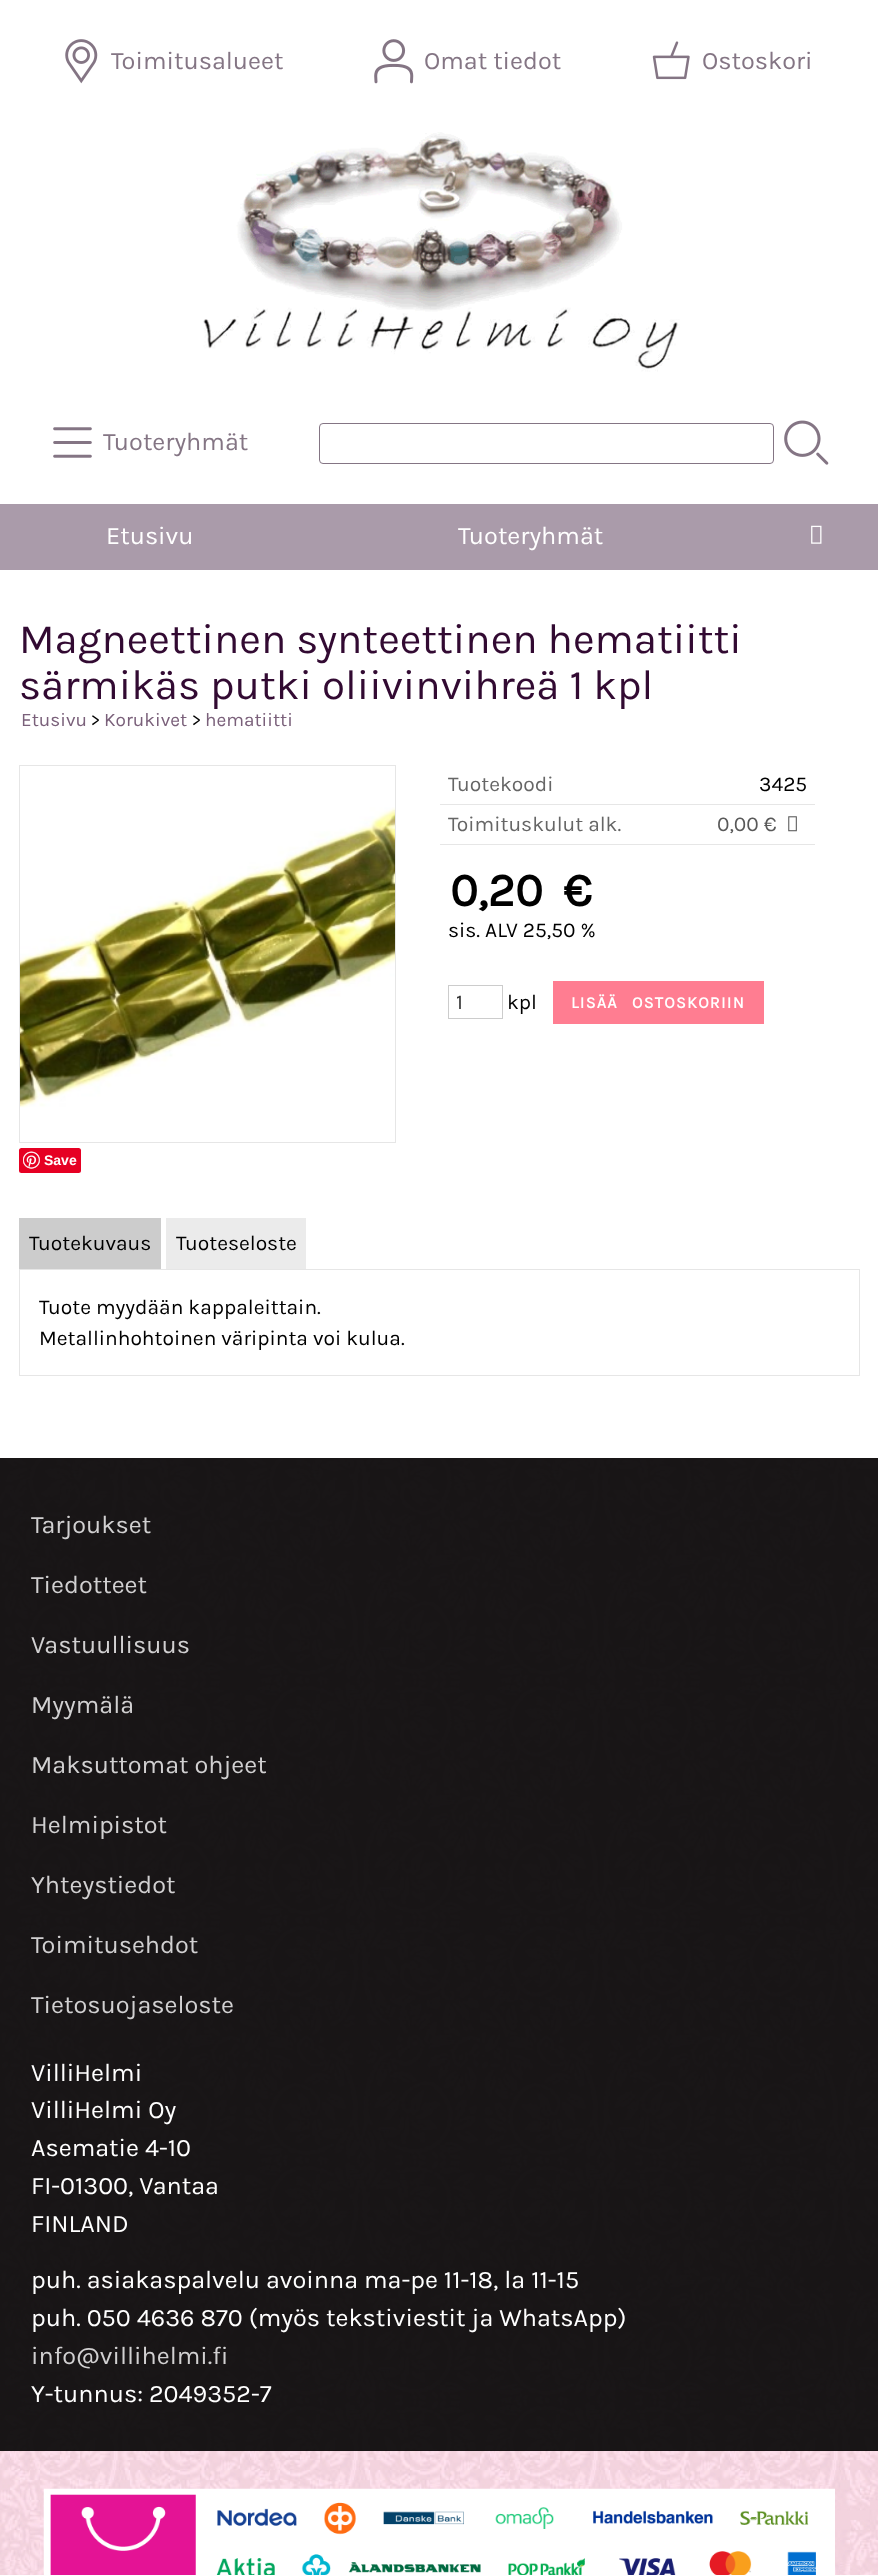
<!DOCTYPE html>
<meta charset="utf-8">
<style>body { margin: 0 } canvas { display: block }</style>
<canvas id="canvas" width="878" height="2575"></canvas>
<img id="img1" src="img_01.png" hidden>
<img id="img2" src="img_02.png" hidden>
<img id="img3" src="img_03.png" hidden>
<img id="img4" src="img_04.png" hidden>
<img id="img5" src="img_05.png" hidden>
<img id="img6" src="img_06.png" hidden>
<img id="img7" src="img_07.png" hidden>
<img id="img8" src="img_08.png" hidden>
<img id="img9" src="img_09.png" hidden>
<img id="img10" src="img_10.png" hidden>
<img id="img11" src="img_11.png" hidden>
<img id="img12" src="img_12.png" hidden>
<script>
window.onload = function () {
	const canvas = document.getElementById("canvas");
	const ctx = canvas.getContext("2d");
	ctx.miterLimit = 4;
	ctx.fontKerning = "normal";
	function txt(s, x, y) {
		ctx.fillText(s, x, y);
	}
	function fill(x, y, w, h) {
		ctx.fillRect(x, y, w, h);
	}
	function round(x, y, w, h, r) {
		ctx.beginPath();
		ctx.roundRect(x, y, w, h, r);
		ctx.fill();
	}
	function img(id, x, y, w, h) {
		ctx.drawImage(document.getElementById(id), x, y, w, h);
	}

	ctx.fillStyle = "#FFFFFF";
	fill(0, 0, 878, 2575);
	img("img1", 0, 1458, 878, 1117);
	img("img2", 65, 39, 33, 45);
	img("img3", 374, 39, 40, 45);
	img("img4", 652, 41, 38, 39);
	img("img5", 203, 132, 477, 240);
	img("img6", 53, 427, 39, 31);
	ctx.beginPath();
	ctx.roundRect(319.5, 423.5, 454, 40, 3.5);
	ctx.strokeStyle = "#847584";
	ctx.stroke();
	img("img7", 784, 420, 45, 45);
	ctx.fillStyle = "#AA9BAA";
	fill(0, 504, 878, 66);
	img("img8", 811, 525, 11, 19);
	ctx.fillStyle = "#E6E6E6";
	fill(440, 804, 375, 1);
	fill(440, 844, 375, 1);
	img("img9", 788, 816, 9, 16);
	ctx.strokeStyle = "#CCCCCC";
	ctx.strokeRect(448.5, 985.5, 54, 33);
	ctx.fillStyle = "#FF7D91";
	fill(553, 981, 211, 43);
	ctx.strokeStyle = "#E6E6E6";
	ctx.strokeRect(19.5, 765.5, 376, 377);
	img("img10", 20, 807, 375, 301);
	ctx.fillStyle = "#E60023";
	round(19, 1148, 62, 25, 2.5);
	img("img11", 23, 1151, 17, 18);
	ctx.fillStyle = "#CCCCCC";
	fill(19, 1218, 142, 51);
	ctx.fillStyle = "#EBEBEB";
	fill(166, 1218, 140, 51);
	ctx.strokeRect(19.5, 1269.5, 840, 106);
	ctx.fillStyle = "rgba(0, 0, 0, 0.9)";
	fill(0, 1458, 878, 993);
	img("img12", 43, 2488, 792, 87);
	ctx.font = "25.2px Karla";
	ctx.fillStyle = "#847584";
	txt("Toimitusalueet", 111, 69);
	txt("Omat tiedot", 424, 69);
	txt("Ostoskori", 702, 69);
	txt("Tuoteryhmät", 103, 450);
	ctx.fillStyle = "#FFFFFF";
	txt("Etusivu", 106, 544);
	txt("Tuoteryhmät", 458, 544);
	ctx.font = "42px Karla";
	ctx.fillStyle = "#320A32";
	txt("Magneettinen synteettinen hematiitti", 19, 653);
	txt("särmikäs putki oliivinvihreä 1 kpl", 19, 699);
	ctx.font = "19px Karla";
	ctx.fillStyle = "#7A607A";
	txt("Etusivu", 21, 726);
	ctx.fillStyle = "#000000";
	txt(">", 91, 726);
	ctx.fillStyle = "#7A607A";
	txt("Korukivet", 104, 726);
	ctx.fillStyle = "#000000";
	txt(">", 192, 726);
	ctx.fillStyle = "#7A607A";
	txt("hematiitti", 205, 726);
	ctx.font = "21px Karla";
	ctx.fillStyle = "#666666";
	txt("Tuotekoodi", 448, 791);
	ctx.fillStyle = "#000000";
	txt("3425", 759, 791);
	ctx.fillStyle = "#666666";
	txt("Toimituskulut alk.", 448, 831);
	ctx.fillStyle = "#595959";
	txt("0,00 €", 717, 831);
	ctx.font = "bold 47px Karla";
	ctx.fillStyle = "#000000";
	txt("0,20", 450, 906);
	txt("€", 563, 906);
	ctx.font = "21px Karla";
	txt("sis. ALV 25,50 %", 448, 937);
	ctx.fillStyle = "#333333";
	txt("1", 456, 1009);
	ctx.fillStyle = "#000000";
	txt("kpl", 507, 1009);
	ctx.letterSpacing = "1.25px";
	ctx.wordSpacing = "9px";
	ctx.font = "bold 16.25px Karla";
	ctx.fillStyle = "#FFFFFF";
	txt("LISÄÄ OSTOSKORIIN", 571, 1008);
	ctx.letterSpacing = "0px";
	ctx.wordSpacing = "0px";
	ctx.font = "bold 14px Liberation Sans";
	txt("Save", 44, 1165);
	ctx.font = "21px Karla";
	ctx.fillStyle = "#000000";
	txt("Tuotekuvaus", 29, 1250);
	txt("Tuoteseloste", 176, 1250);
	txt("Tuote myydään kappaleittain.", 39, 1314);
	txt("Metallinhohtoinen väripinta voi kulua.", 39, 1345);
	ctx.font = "25.2px Karla";
	ctx.fillStyle = "#D1D0D1";
	txt("Tarjoukset", 31, 1533);
	txt("Tiedotteet", 31, 1593);
	txt("Vastuullisuus", 31, 1653);
	txt("Myymälä", 31, 1713);
	txt("Maksuttomat ohjeet", 31, 1773);
	txt("Helmipistot", 31, 1833);
	txt("Yhteystiedot", 31, 1893);
	txt("Toimitusehdot", 31, 1953);
	txt("Tietosuojaseloste", 31, 2013);
	ctx.fillStyle = "#FFFFFF";
	txt("VilliHelmi", 31, 2081);
	txt("VilliHelmi Oy", 31, 2118);
	txt("Asematie 4-10", 31, 2156);
	txt("FI-01300, Vantaa", 31, 2194);
	txt("FINLAND", 31, 2232);
	txt("puh. asiakaspalvelu avoinna ma-pe 11-18, la 11-15", 31, 2288);
	txt("puh. 050 4636 870 (myös tekstiviestit ja WhatsApp)", 31, 2326);
	ctx.fillStyle = "#D1D0D1";
	txt("info@villihelmi.fi", 31, 2364);
	ctx.fillStyle = "#FFFFFF";
	txt("Y-tunnus: 2049352-7", 31, 2402);
};
</script>
